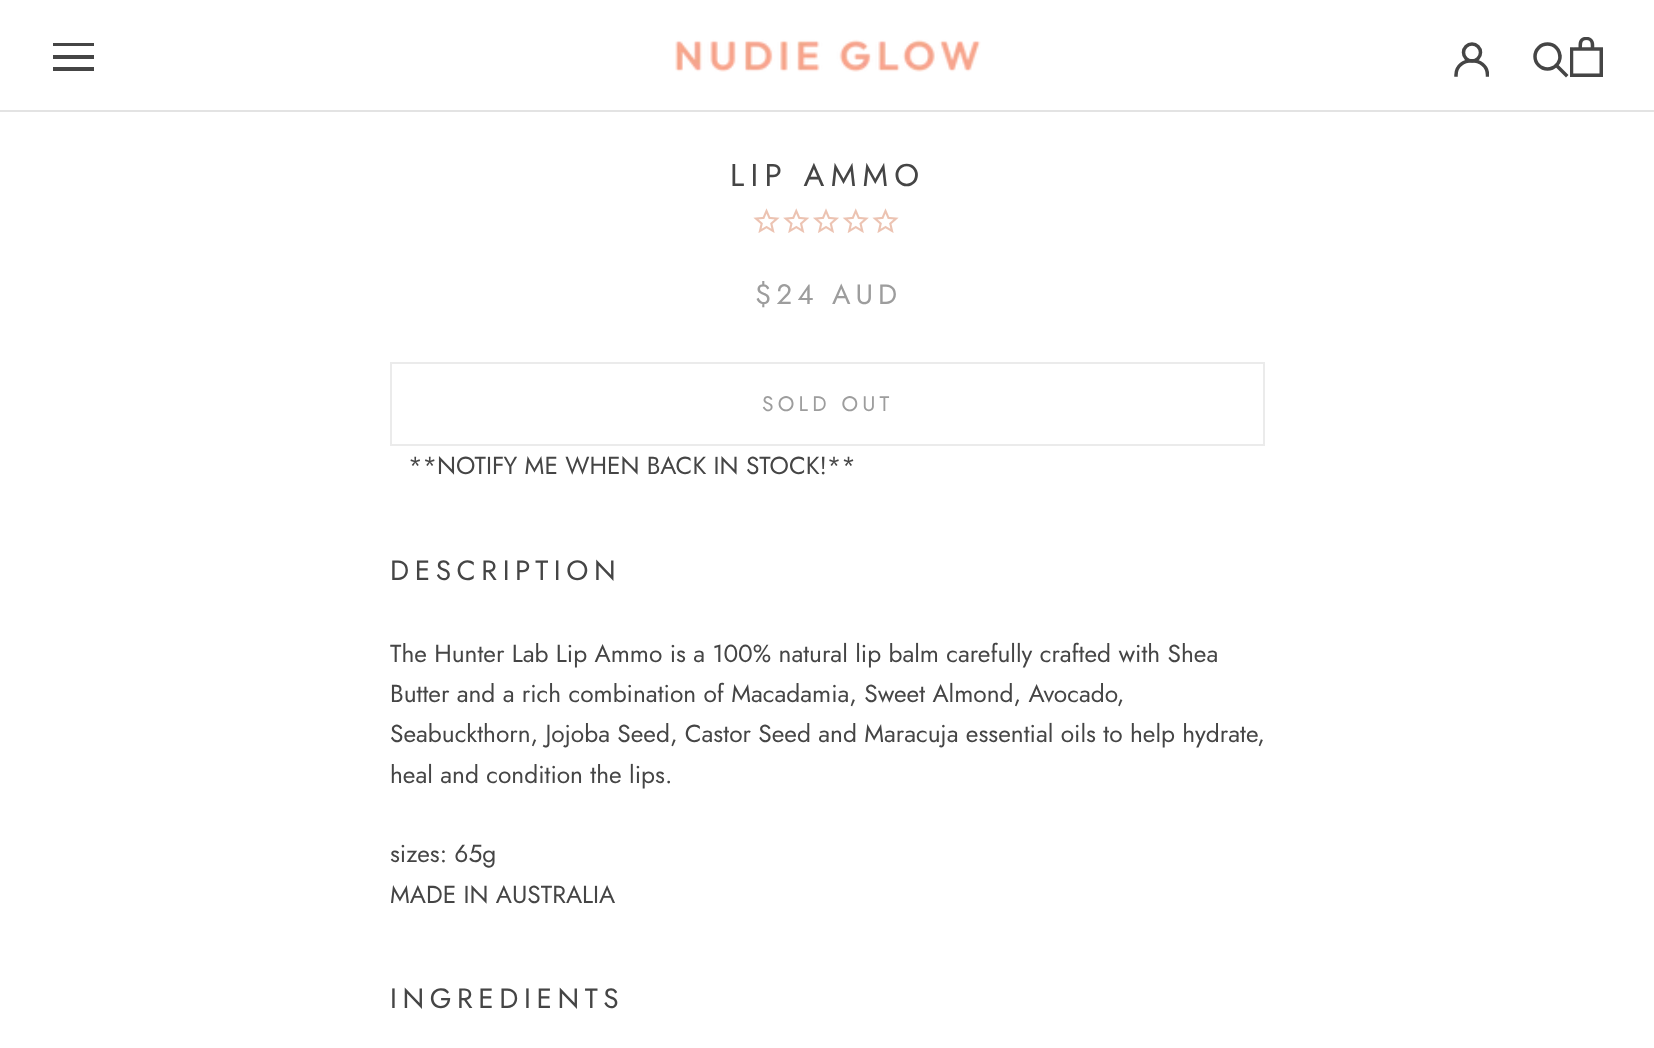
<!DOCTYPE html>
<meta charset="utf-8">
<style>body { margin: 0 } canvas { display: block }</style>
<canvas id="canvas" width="1654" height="1048"></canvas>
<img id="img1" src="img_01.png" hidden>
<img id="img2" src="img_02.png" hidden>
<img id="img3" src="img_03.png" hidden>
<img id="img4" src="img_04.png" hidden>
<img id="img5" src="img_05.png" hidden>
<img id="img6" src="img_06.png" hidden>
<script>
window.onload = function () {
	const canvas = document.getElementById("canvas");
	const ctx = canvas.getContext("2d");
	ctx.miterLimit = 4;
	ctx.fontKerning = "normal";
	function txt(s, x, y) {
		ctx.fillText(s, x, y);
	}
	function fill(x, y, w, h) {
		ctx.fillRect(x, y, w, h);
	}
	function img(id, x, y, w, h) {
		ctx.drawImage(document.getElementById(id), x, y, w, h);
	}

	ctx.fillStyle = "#FFFFFF";
	fill(0, 0, 1654, 1048);
	ctx.fillStyle = "#E3E3E3";
	fill(0, 110, 1654, 2);
	ctx.save();
	ctx.beginPath();
	ctx.rect(53, 42, 42, 30);
	ctx.clip();
	ctx.fillStyle = "#454545";
	ctx.beginPath();
	ctx.moveTo(52, 71);
	ctx.lineTo(52, 67);
	ctx.lineTo(94, 67);
	ctx.lineTo(94, 71);
	ctx.closePath();
	ctx.moveTo(52, 55);
	ctx.lineTo(94, 55);
	ctx.lineTo(94, 59);
	ctx.lineTo(52, 59);
	ctx.closePath();
	ctx.moveTo(52, 43);
	ctx.lineTo(94, 43);
	ctx.lineTo(94, 46);
	ctx.lineTo(52, 46);
	ctx.closePath();
	ctx.fill();
	ctx.restore();
	img("img1", 675, 39, 306, 33);
	ctx.save();
	ctx.beginPath();
	ctx.rect(1454, 42, 35, 35);
	ctx.clip();
	ctx.beginPath();
	ctx.moveTo(1456, 75);
	ctx.bezierCurveTo(1456, 56, 1487.5, 56, 1487.5, 75);
	ctx.strokeStyle = "#454545";
	ctx.lineWidth = 3.5;
	ctx.lineCap = "square";
	ctx.stroke();
	ctx.restore();
	ctx.beginPath();
	ctx.arc(1472, 52.5, 8.5, 0, Math.PI * 2);
	ctx.strokeStyle = "#454545";
	ctx.lineWidth = 3.5;
	ctx.stroke();
	ctx.beginPath();
	ctx.moveTo(1566, 75);
	ctx.lineTo(1556.5, 65.5);
	ctx.lineCap = "square";
	ctx.stroke();
	ctx.beginPath();
	ctx.arc(1547.5, 56.5, 12.5, 0, Math.PI * 2);
	ctx.stroke();
	img("img2", 1570, 37, 33, 40);
	img("img3", 753, 208, 27, 25);
	img("img4", 783, 208, 27, 25);
	img("img5", 813, 208, 26, 25);
	img("img6", 842, 208, 27, 25);
	img("img3", 872, 208, 27, 25);
	ctx.strokeStyle = "#EBEBEB";
	ctx.lineWidth = 2;
	ctx.strokeRect(391, 363, 873, 82);
	ctx.letterSpacing = "6.25px";
	ctx.font = "31.5px Jost";
	ctx.fillStyle = "#454545";
	txt("LIP AMMO", 730, 186);
	ctx.letterSpacing = "5px";
	ctx.font = "28px Jost";
	ctx.fillStyle = "#9D9D9D";
	txt("$24 AUD", 755, 304);
	ctx.letterSpacing = "4.25px";
	ctx.font = "21px Jost";
	txt("SOLD OUT", 762, 411);
	ctx.letterSpacing = "0px";
	ctx.font = "24.5px Jost";
	ctx.fillStyle = "#454545";
	txt("**NOTIFY ME WHEN BACK IN STOCK!**", 408, 474);
	ctx.letterSpacing = "5.6px";
	ctx.font = "28px Jost";
	txt("DESCRIPTION", 390, 580);
	ctx.letterSpacing = "0px";
	ctx.font = "24.5px Jost";
	txt("The Hunter Lab Lip Ammo is a 100% natural lip balm carefully crafted with Shea", 390, 662);
	txt("Butter and a rich combination of Macadamia, Sweet Almond, Avocado,", 390, 702);
	txt("Seabuckthorn, Jojoba Seed, Castor Seed and Maracuja essential oils to help hydrate,", 390, 742);
	txt("heal and condition the lips.", 390, 783);
	txt("sizes: 65g", 390, 862);
	txt("MADE IN AUSTRALIA", 390, 903);
	ctx.letterSpacing = "5.6px";
	ctx.font = "28px Jost";
	txt("INGREDIENTS", 390, 1008);
};
</script>
